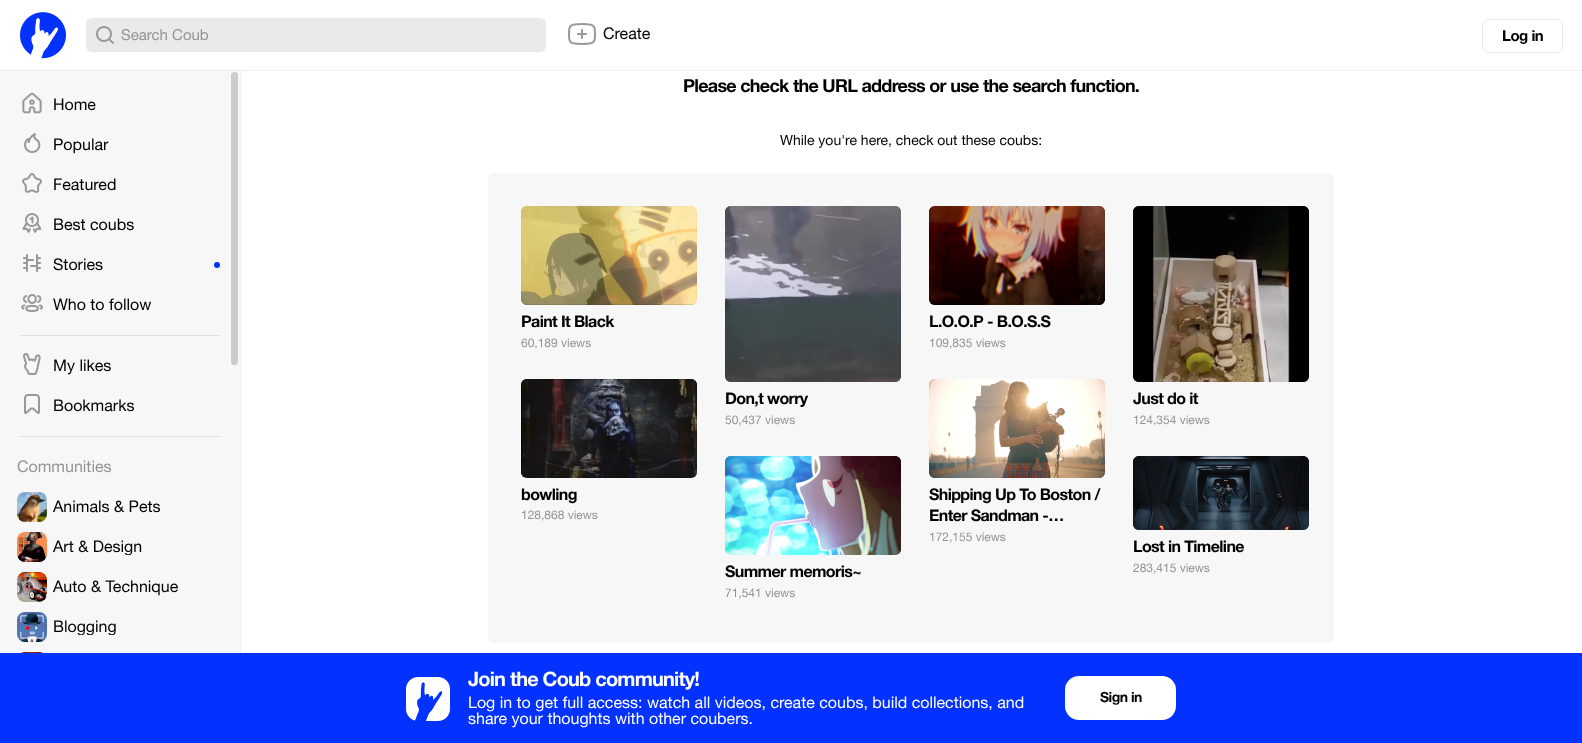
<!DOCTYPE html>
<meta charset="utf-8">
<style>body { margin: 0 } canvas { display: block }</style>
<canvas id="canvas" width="1582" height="743"></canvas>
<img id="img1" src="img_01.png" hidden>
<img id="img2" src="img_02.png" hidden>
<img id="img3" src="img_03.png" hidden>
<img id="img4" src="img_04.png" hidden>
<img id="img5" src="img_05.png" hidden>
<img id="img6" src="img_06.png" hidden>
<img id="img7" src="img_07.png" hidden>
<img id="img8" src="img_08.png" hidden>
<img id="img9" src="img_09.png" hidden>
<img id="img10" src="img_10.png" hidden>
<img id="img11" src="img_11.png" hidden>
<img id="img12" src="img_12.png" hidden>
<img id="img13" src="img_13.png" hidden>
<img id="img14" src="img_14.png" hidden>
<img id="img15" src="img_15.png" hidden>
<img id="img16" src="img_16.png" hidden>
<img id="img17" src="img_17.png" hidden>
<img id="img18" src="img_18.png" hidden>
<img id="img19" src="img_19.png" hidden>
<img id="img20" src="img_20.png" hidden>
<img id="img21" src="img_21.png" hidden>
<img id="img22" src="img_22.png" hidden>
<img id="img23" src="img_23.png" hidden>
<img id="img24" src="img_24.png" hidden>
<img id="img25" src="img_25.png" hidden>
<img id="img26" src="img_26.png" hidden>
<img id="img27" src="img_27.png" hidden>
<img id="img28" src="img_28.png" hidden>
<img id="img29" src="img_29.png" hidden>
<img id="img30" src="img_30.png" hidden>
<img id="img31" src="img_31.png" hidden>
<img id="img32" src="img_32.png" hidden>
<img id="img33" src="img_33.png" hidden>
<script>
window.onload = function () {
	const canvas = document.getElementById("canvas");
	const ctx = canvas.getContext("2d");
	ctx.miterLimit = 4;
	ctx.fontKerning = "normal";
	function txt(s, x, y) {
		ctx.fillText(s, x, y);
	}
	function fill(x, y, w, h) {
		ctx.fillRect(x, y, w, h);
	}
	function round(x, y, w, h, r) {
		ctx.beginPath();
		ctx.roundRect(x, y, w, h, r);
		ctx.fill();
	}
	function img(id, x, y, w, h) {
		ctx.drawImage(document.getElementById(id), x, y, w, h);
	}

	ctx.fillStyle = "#FFFFFF";
	fill(0, 0, 1582, 743);
	ctx.strokeStyle = "#F2F2F2";
	ctx.strokeRect(-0.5, -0.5, 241, 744);
	ctx.fillStyle = "#F7F7F7";
	fill(0, 70, 240, 583);
	ctx.fillStyle = "rgba(0, 0, 0, 0.05)";
	fill(0, 70, 1582, 1);
	ctx.fillStyle = "#FFFFFF";
	fill(240, 0, 1, 70);
	img("img1", 20, 12, 46, 47);
	ctx.fillStyle = "#EAEAEA";
	round(86, 18, 460, 34, 6);
	img("img2", 96, 26, 18, 18);
	img("img3", 568, 23, 28, 22);
	ctx.beginPath();
	ctx.roundRect(1482.5, 19.5, 80, 33, 6.5);
	ctx.strokeStyle = "#E6E6E6";
	ctx.stroke();
	ctx.fillStyle = "#FFFFFF";
	round(1483, 20, 79, 32, 6);
	img("img4", 22, 92, 20, 22);
	img("img5", 24, 133, 17, 20);
	img("img6", 22, 173, 20, 20);
	img("img7", 22, 213, 20, 20);
	img("img8", 23, 254, 18, 18);
	ctx.fillStyle = "#0332FF";
	ctx.beginPath();
	ctx.arc(217, 265, 3, 0, Math.PI * 2);
	ctx.fill();
	img("img9", 21, 294, 22, 18);
	ctx.fillStyle = "#DEDEDE";
	fill(20, 335, 200, 1);
	img("img10", 23, 353, 18, 22);
	img("img11", 24, 394, 16, 20);
	fill(20, 436, 200, 1);
	img("img12", 17, 492, 30, 30);
	img("img13", 17, 532, 30, 30);
	img("img14", 17, 572, 30, 30);
	img("img15", 17, 612, 30, 30);
	img("img16", 21, 652, 22, 1);
	ctx.fillStyle = "#CCCCCC";
	round(231, 72, 7, 293, 3.5);
	ctx.fillStyle = "#F7F7F7";
	round(488, 173, 846, 470, 5);
	img("img17", 521, 206, 176, 99);
	img("img18", 521, 206, 176, 99);
	img("img19", 929, 206, 176, 99);
	img("img20", 929, 206, 176, 99);
	img("img21", 725, 206, 176, 176);
	img("img22", 725, 206, 176, 176);
	img("img23", 1133, 206, 176, 176);
	img("img24", 1133, 206, 176, 176);
	img("img25", 521, 379, 176, 99);
	img("img26", 521, 379, 176, 98);
	img("img27", 929, 379, 176, 99);
	img("img28", 929, 379, 176, 99);
	img("img29", 1133, 456, 176, 74);
	img("img30", 1133, 456, 176, 74);
	img("img31", 725, 456, 176, 99);
	img("img32", 725, 456, 176, 99);
	ctx.fillStyle = "#0332FF";
	fill(0, 653, 1582, 90);
	img("img33", 406, 677, 44, 44);
	ctx.fillStyle = "#FFFFFF";
	round(1065, 676, 111, 44, 14);
	ctx.font = "15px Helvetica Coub";
	ctx.fillStyle = "#949494";
	txt("Search Coub", 121, 40);
	ctx.font = "16px Helvetica Coub";
	ctx.fillStyle = "#000000";
	txt("Create", 603, 39);
	ctx.letterSpacing = "-0.5px";
	ctx.font = "bold 15px Helvetica Coub";
	txt("Log in", 1502, 41);
	ctx.letterSpacing = "0px";
	ctx.font = "16px Helvetica Coub";
	txt("Home", 53, 110);
	txt("Popular", 53, 150);
	txt("Featured", 53, 190);
	txt("Best coubs", 53, 230);
	txt("Stories", 53, 270);
	txt("Who to follow", 53, 310);
	txt("My likes", 53, 371);
	txt("Bookmarks", 53, 411);
	ctx.fillStyle = "#949494";
	txt("Communities", 17, 472);
	ctx.fillStyle = "#000000";
	txt("Animals & Pets", 53, 512);
	ctx.save();
	ctx.beginPath();
	ctx.rect(53, 539, 89, 16);
	ctx.clip();
	txt("Art & Design", 53, 552);
	ctx.restore();
	txt("Auto & Technique", 53, 592);
	ctx.save();
	ctx.beginPath();
	ctx.rect(53, 619, 64, 16);
	ctx.clip();
	txt("Blogging", 53, 632);
	ctx.restore();
	ctx.letterSpacing = "-0.72px";
	ctx.font = "bold 18px Helvetica Coub";
	txt("Please check the URL address or use the search function.", 683, 92);
	ctx.letterSpacing = "0px";
	ctx.font = "14px Helvetica Coub";
	txt("While you're here, check out these coubs:", 780, 145);
	ctx.letterSpacing = "-0.6px";
	ctx.font = "bold 16px Helvetica Coub";
	txt("Paint It Black", 521, 327);
	ctx.letterSpacing = "0px";
	ctx.font = "12px Helvetica Coub";
	ctx.fillStyle = "#949494";
	txt("60,189 views", 521, 347);
	ctx.letterSpacing = "-0.6px";
	ctx.font = "bold 16px Helvetica Coub";
	ctx.fillStyle = "#000000";
	txt("L.O.O.P - B.O.S.S", 929, 327);
	ctx.letterSpacing = "0px";
	ctx.font = "12px Helvetica Coub";
	ctx.fillStyle = "#949494";
	txt("109,835 views", 929, 347);
	ctx.letterSpacing = "-0.6px";
	ctx.font = "bold 16px Helvetica Coub";
	ctx.fillStyle = "#000000";
	txt("Don,t worry", 725, 404);
	ctx.letterSpacing = "0px";
	ctx.font = "12px Helvetica Coub";
	ctx.fillStyle = "#949494";
	txt("50,437 views", 725, 424);
	ctx.letterSpacing = "-0.6px";
	ctx.font = "bold 16px Helvetica Coub";
	ctx.fillStyle = "#000000";
	txt("Just do it", 1133, 404);
	ctx.letterSpacing = "0px";
	ctx.font = "12px Helvetica Coub";
	ctx.fillStyle = "#949494";
	txt("124,354 views", 1133, 424);
	ctx.letterSpacing = "-0.6px";
	ctx.font = "bold 16px Helvetica Coub";
	ctx.fillStyle = "#000000";
	txt("bowling", 521, 500);
	ctx.letterSpacing = "0px";
	ctx.font = "12px Helvetica Coub";
	ctx.fillStyle = "#949494";
	txt("128,868 views", 521, 519);
	ctx.letterSpacing = "-0.6px";
	ctx.font = "bold 16px Helvetica Coub";
	ctx.fillStyle = "#000000";
	txt("Shipping Up To Boston /", 929, 500);
	txt("Enter Sandman -…", 929, 521);
	ctx.letterSpacing = "0px";
	ctx.font = "12px Helvetica Coub";
	ctx.fillStyle = "#949494";
	txt("172,155 views", 929, 541);
	ctx.letterSpacing = "-0.6px";
	ctx.font = "bold 16px Helvetica Coub";
	ctx.fillStyle = "#000000";
	txt("Lost in Timeline", 1133, 552);
	ctx.letterSpacing = "0px";
	ctx.font = "12px Helvetica Coub";
	ctx.fillStyle = "#949494";
	txt("283,415 views", 1133, 572);
	ctx.letterSpacing = "-0.6px";
	ctx.font = "bold 16px Helvetica Coub";
	ctx.fillStyle = "#000000";
	txt("Summer memoris~", 725, 577);
	ctx.letterSpacing = "0px";
	ctx.font = "12px Helvetica Coub";
	ctx.fillStyle = "#949494";
	txt("71,541 views", 725, 597);
	ctx.letterSpacing = "-0.8px";
	ctx.font = "bold 20px Helvetica Coub";
	ctx.fillStyle = "#FFFFFF";
	txt("Join the Coub community!", 468, 686);
	ctx.letterSpacing = "0px";
	ctx.font = "16px Helvetica Coub";
	txt("Log in to get full access: watch all videos, create coubs, build collections, and", 468, 708);
	txt("share your thoughts with other coubers.", 468, 724);
	ctx.letterSpacing = "-0.5px";
	ctx.font = "bold 14px Helvetica Coub";
	ctx.fillStyle = "#000000";
	txt("Sign in", 1100, 702);
};
</script>
